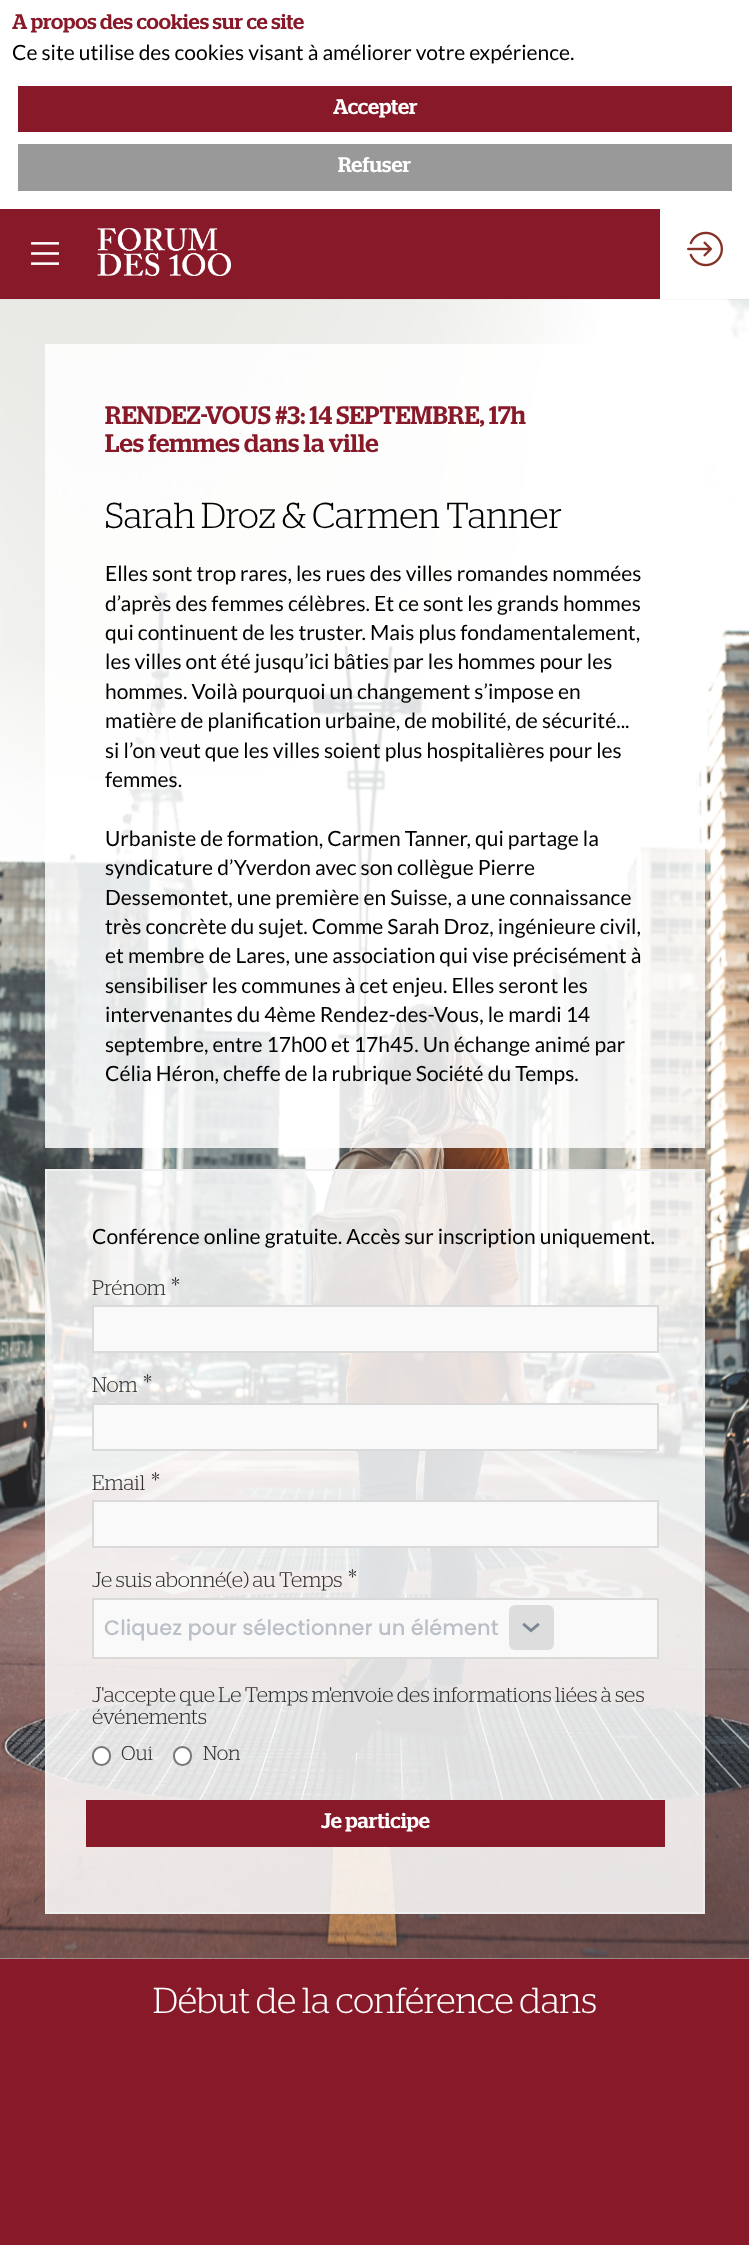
<!DOCTYPE html>
<meta charset="utf-8">
<style>body { margin: 0 } canvas { display: block }</style>
<canvas id="canvas" width="749" height="2245"></canvas>
<img id="img1" src="img_01.png" hidden>
<img id="img2" src="img_02.png" hidden>
<img id="img3" src="img_03.png" hidden>
<img id="img4" src="img_04.png" hidden>
<img id="img5" src="img_05.png" hidden>
<script>
window.onload = function () {
	const canvas = document.getElementById("canvas");
	const ctx = canvas.getContext("2d");
	ctx.miterLimit = 4;
	ctx.fontKerning = "normal";
	function txt(s, x, y) {
		ctx.fillText(s, x, y);
	}
	function fill(x, y, w, h) {
		ctx.fillRect(x, y, w, h);
	}
	function round(x, y, w, h, r) {
		ctx.beginPath();
		ctx.roundRect(x, y, w, h, r);
		ctx.fill();
	}
	function img(id, x, y, w, h) {
		ctx.drawImage(document.getElementById(id), x, y, w, h);
	}

	ctx.fillStyle = "#FFFFFF";
	fill(0, 0, 749, 2245);
	ctx.fillStyle = "#881929";
	fill(18, 86, 714, 46);
	ctx.fillStyle = "#999999";
	fill(18, 144, 714, 47);
	ctx.fillStyle = "#881929";
	fill(0, 209, 660, 90);
	img("img1", 31, 242, 28, 23);
	img("img2", 97, 228, 134, 48);
	img("img3", 687, 231, 36, 36);
	img("img4", 0, 299, 749, 1660);
	ctx.fillStyle = "rgba(255, 255, 255, 0.85)";
	fill(45, 344, 660, 804);
	ctx.beginPath();
	ctx.rect(46, 1170, 658, 743);
	ctx.fill();
	ctx.strokeStyle = "#EEEEEE";
	ctx.lineWidth = 2;
	ctx.stroke();
	ctx.fillStyle = "#F9F9F9";
	ctx.beginPath();
	ctx.rect(93, 1306, 565, 46);
	ctx.fill();
	ctx.strokeStyle = "#DADADA";
	ctx.stroke();
	ctx.beginPath();
	ctx.rect(93, 1404, 565, 46);
	ctx.fill();
	ctx.stroke();
	ctx.beginPath();
	ctx.rect(93, 1501, 565, 46);
	ctx.fill();
	ctx.stroke();
	ctx.beginPath();
	ctx.rect(93, 1599, 565, 59);
	ctx.fill();
	ctx.stroke();
	ctx.fillStyle = "#DDDDDD";
	round(509, 1605, 45, 45, 6);
	img("img5", 522, 1622, 18, 11);
	ctx.fillStyle = "#FFFFFF";
	ctx.beginPath();
	ctx.roundRect(93, 1747, 17, 18, 8.5);
	ctx.fill();
	ctx.strokeStyle = "#767676";
	ctx.stroke();
	ctx.beginPath();
	ctx.roundRect(174, 1747, 17, 18, 8.5);
	ctx.fill();
	ctx.stroke();
	ctx.fillStyle = "#881929";
	fill(86, 1800, 579, 47);
	fill(0, 1959, 749, 286);
	ctx.font = "500 21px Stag";
	txt("A propos des cookies sur ce site", 12, 29);
	ctx.font = "21px Lato";
	ctx.fillStyle = "#000000";
	txt("Ce site utilise des cookies visant à améliorer votre expérience.", 12, 60);
	ctx.font = "500 21px Stag";
	ctx.fillStyle = "#FFFFFF";
	txt("Accepter", 333, 114);
	txt("Refuser", 338, 172);
	ctx.font = "500 25.25px Stag";
	ctx.fillStyle = "#881929";
	txt("RENDEZ-VOUS #3: 14 SEPTEMBRE, 17h", 105, 424);
	txt("Les femmes dans la ville", 105, 452);
	ctx.font = "300 36px Stag";
	ctx.fillStyle = "#000000";
	txt("Sarah Droz & Carmen Tanner", 105, 528);
	ctx.font = "21px Lato";
	txt("Elles sont trop rares, les rues des villes romandes nommées", 105, 581);
	txt("d’après des femmes célèbres. Et ce sont les grands hommes", 105, 611);
	txt("qui continuent de les truster. Mais plus fondamentalement,", 105, 640);
	txt("les villes ont été jusqu’ici bâties par les hommes pour les", 105, 669);
	txt("hommes. Voilà pourquoi un changement s’impose en", 105, 699);
	txt("matière de planification urbaine, de mobilité, de sécurité...", 105, 728);
	txt("si l’on veut que les villes soient plus hospitalières pour les", 105, 758);
	txt("femmes.", 105, 787);
	txt("Urbaniste de formation, Carmen Tanner, qui partage la", 105, 846);
	txt("syndicature d’Yverdon avec son collègue Pierre", 105, 875);
	txt("Dessemontet, une première en Suisse, a une connaissance", 105, 905);
	txt("très concrète du sujet. Comme Sarah Droz, ingénieure civil,", 105, 934);
	txt("et membre de Lares, une association qui vise précisément à", 105, 963);
	txt("sensibiliser les communes à cet enjeu. Elles seront les", 105, 993);
	txt("intervenantes du 4ème Rendez-des-Vous, le mardi 14", 105, 1022);
	txt("septembre, entre 17h00 et 17h45. Un échange animé par", 105, 1052);
	txt("Célia Héron, cheffe de la rubrique Société du Temps.", 105, 1081);
	txt("Conférence online gratuite. Accès sur inscription uniquement.", 92, 1244);
	ctx.font = "300 21px Stag";
	ctx.fillStyle = "#30302F";
	txt("Prénom", 92, 1295);
	ctx.font = "300 25.25px Stag";
	txt("*", 171, 1295);
	ctx.font = "300 21px Stag";
	txt("Nom", 92, 1392);
	ctx.font = "300 25.25px Stag";
	txt("*", 143, 1392);
	ctx.font = "300 21px Stag";
	txt("Email", 92, 1490);
	ctx.font = "300 25.25px Stag";
	txt("*", 151, 1490);
	ctx.font = "300 21px Stag";
	txt("Je suis abonné(e) au Temps", 92, 1587);
	ctx.font = "300 25.25px Stag";
	txt("*", 348, 1587);
	ctx.font = "500 21px Poppins";
	ctx.fillStyle = "#BBBFC6";
	txt("Cliquez pour sélectionner un élément", 104, 1635);
	ctx.font = "300 21px Stag";
	ctx.fillStyle = "#30302F";
	txt("J'accepte que Le Temps m'envoie des informations liées à ses", 92, 1702);
	txt("événements", 92, 1724);
	ctx.font = "300 20px Stag";
	txt("Oui", 121, 1760);
	txt("Non", 203, 1760);
	ctx.font = "500 21px Stag";
	ctx.fillStyle = "#FFFFFF";
	txt("Je participe", 321, 1828);
	ctx.font = "300 36px Stag";
	txt("Début de la conférence dans", 153, 2013);
};
</script>
